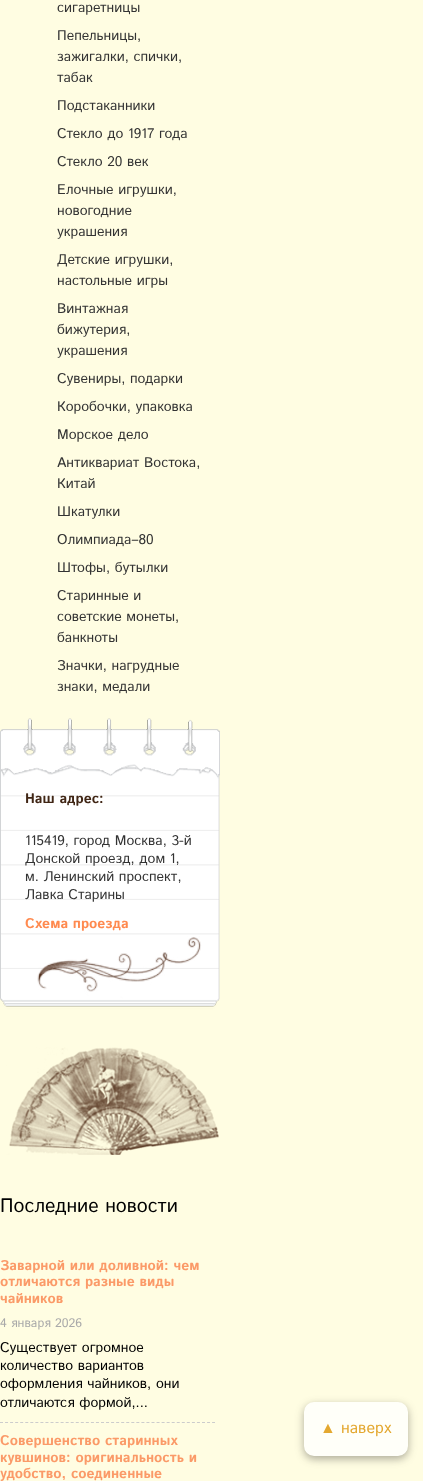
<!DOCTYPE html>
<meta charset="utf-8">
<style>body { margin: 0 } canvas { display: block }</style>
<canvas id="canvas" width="423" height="1481"></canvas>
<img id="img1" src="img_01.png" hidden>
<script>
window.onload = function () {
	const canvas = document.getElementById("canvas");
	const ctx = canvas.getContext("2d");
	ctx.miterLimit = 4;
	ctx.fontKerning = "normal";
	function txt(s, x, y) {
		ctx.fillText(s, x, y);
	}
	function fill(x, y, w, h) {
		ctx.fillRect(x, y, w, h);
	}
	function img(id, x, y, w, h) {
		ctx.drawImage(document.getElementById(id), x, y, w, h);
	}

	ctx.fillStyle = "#FFFDE2";
	fill(0, 0, 423, 1481);
	img("img1", 0, 718, 220, 437);
	ctx.beginPath();
	ctx.moveTo(0, 1422.5);
	ctx.lineTo(215, 1422.5);
	ctx.strokeStyle = "#CCCCCC";
	ctx.setLineDash([3, 2.05]);
	ctx.stroke();
	ctx.fillStyle = "rgba(51, 51, 45, 0.4)";
	ctx.filter = "blur(4px)";
	ctx.beginPath();
	ctx.roundRect(304, 1405, 104, 54, 10);
	ctx.fill();
	ctx.filter = "none";
	ctx.fillStyle = "#FFFFF9";
	ctx.beginPath();
	ctx.roundRect(305, 1403, 102, 52, 9);
	ctx.fill();
	ctx.strokeStyle = "#FFFFF9";
	ctx.lineWidth = 2;
	ctx.setLineDash([]);
	ctx.stroke();
	ctx.font = "14px Istok Web";
	ctx.fillStyle = "#333333";
	txt("сигаретницы", 57, 12);
	txt("Пепельницы,", 57, 40);
	txt("зажигалки, спички,", 57, 61);
	txt("табак", 57, 82);
	txt("Подстаканники", 57, 110);
	txt("Стекло до 1917 года", 57, 138);
	txt("Стекло 20 век", 57, 166);
	txt("Елочные игрушки,", 57, 194);
	txt("новогодние", 57, 215);
	txt("украшения", 57, 236);
	txt("Детские игрушки,", 57, 264);
	txt("настольные игры", 57, 285);
	txt("Винтажная", 57, 313);
	txt("бижутерия,", 57, 334);
	txt("украшения", 57, 355);
	txt("Сувениры, подарки", 57, 383);
	txt("Коробочки, упаковка", 57, 411);
	txt("Морское дело", 57, 439);
	txt("Антиквариат Востока,", 57, 467);
	txt("Китай", 57, 488);
	txt("Шкатулки", 57, 516);
	txt("Олимпиада–80", 57, 544);
	txt("Штофы, бутылки", 57, 572);
	txt("Старинные и", 57, 600);
	txt("советские монеты,", 57, 621);
	txt("банкноты", 57, 642);
	txt("Значки, нагрудные", 57, 670);
	txt("знаки, медали", 57, 691);
	ctx.font = "bold 14px Istok Web";
	ctx.fillStyle = "#402615";
	txt("Наш адрес:", 25, 803);
	ctx.font = "14px Istok Web";
	ctx.fillStyle = "#333333";
	txt("115419, город Москва, 3-й", 25, 845);
	txt("Донской проезд, дом 1,", 25, 863);
	txt("м. Ленинский проспект,", 25, 881);
	txt("Лавка Старины", 25, 899);
	ctx.font = "bold 14px Istok Web";
	ctx.fillStyle = "#FF8A4F";
	txt("Схема проезда", 25, 928);
	ctx.font = "19.5px Istok Web";
	ctx.fillStyle = "#000000";
	txt("Последние новости", 0, 1212);
	ctx.font = "bold 14px Istok Web";
	ctx.fillStyle = "#FB9A68";
	txt("Заварной или доливной: чем", 0, 1270);
	txt("отличаются разные виды", 0, 1286);
	txt("чайников", 0, 1303);
	ctx.font = "12.5px Istok Web";
	ctx.fillStyle = "#AAAAAA";
	txt("4 января 2026", 0, 1327);
	ctx.font = "14px Istok Web";
	ctx.fillStyle = "#000000";
	txt("Существует огромное", 0, 1352);
	txt("количество вариантов", 0, 1370);
	txt("оформления чайников, они", 0, 1388);
	txt("отличаются формой,...", 0, 1407);
	ctx.font = "bold 14px Istok Web";
	ctx.fillStyle = "#FB9A68";
	txt("Совершенство старинных", 0, 1445);
	txt("кувшинов: оригинальность и", 0, 1462);
	txt("удобство, соединенные", 0, 1478);
	ctx.font = "16px Liberation Sans";
	ctx.fillStyle = "#E4A830";
	txt("▲", 320, 1433);
	ctx.font = "16px Istok Web";
	txt("наверх", 341, 1433);
};
</script>
